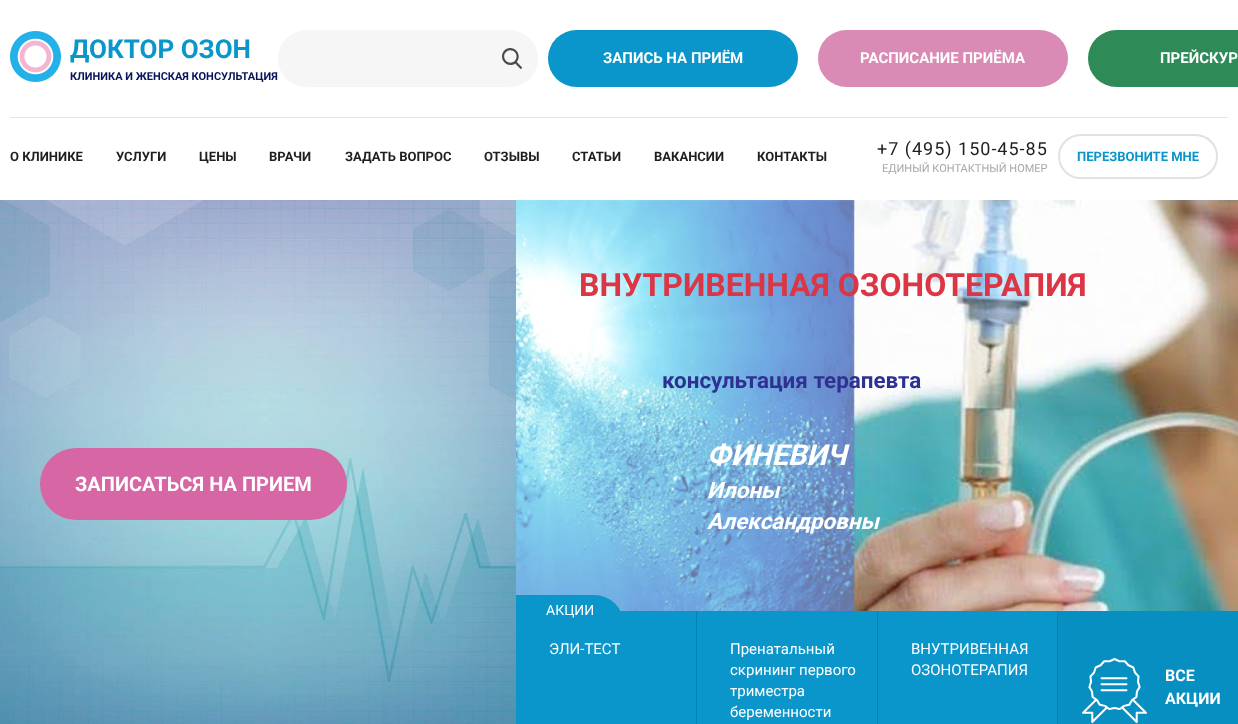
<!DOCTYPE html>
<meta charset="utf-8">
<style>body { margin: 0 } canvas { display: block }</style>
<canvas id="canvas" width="1238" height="724"></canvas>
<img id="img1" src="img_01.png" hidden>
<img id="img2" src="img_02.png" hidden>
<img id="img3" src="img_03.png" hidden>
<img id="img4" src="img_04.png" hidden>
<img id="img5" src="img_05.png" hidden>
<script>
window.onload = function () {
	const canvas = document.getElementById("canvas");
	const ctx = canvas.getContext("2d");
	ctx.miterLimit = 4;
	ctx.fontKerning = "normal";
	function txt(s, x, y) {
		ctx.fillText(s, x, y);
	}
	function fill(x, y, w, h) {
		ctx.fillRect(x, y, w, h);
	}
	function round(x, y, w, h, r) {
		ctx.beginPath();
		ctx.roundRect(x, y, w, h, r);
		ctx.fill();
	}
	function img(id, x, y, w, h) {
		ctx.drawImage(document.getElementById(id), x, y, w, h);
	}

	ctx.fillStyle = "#FFFFFF";
	fill(0, 0, 1238, 724);
	ctx.fillStyle = "#E5E5E5";
	fill(10, 117, 1218, 1);
	img("img1", 10, 31, 51, 51);
	ctx.fillStyle = "#F6F6F6";
	round(278, 30, 260, 57, 28.5);
	img("img2", 502, 48, 20, 21);
	ctx.fillStyle = "#0A96CA";
	round(548, 30, 250, 57, 28.5);
	ctx.fillStyle = "#D98AB5";
	round(818, 30, 250, 57, 28.5);
	ctx.fillStyle = "#2E8B57";
	round(1088, 30, 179, 57, 28.5);
	ctx.beginPath();
	ctx.roundRect(1059, 135, 158, 43, 21.5);
	ctx.strokeStyle = "#E1E1E1";
	ctx.lineWidth = 2;
	ctx.stroke();
	img("img3", 0, 200, 516, 524);
	ctx.fillStyle = "#D667A4";
	round(40, 448, 307, 72, 36);
	img("img4", 516, 200, 722, 411);
	ctx.fillStyle = "#0A96CA";
	fill(516, 611, 541, 113);
	ctx.beginPath();
	ctx.roundRect(516, 595, 108, 30, [0, 30, 0, 0]);
	ctx.fill();
	ctx.fillStyle = "#0184B5";
	fill(696, 611, 1, 113);
	fill(877, 611, 1, 113);
	fill(1057, 611, 1, 113);
	ctx.fillStyle = "#078FC2";
	fill(1058, 611, 180, 113);
	img("img5", 1082, 658, 65, 65);
	ctx.font = "bold 26px Roboto";
	ctx.fillStyle = "#0A96CA";
	txt("ДОКТОР ОЗОН", 70, 58);
	ctx.font = "bold 11px Roboto";
	ctx.fillStyle = "#061557";
	txt("КЛИНИКА И ЖЕНСКАЯ КОНСУЛЬТАЦИЯ", 70, 80);
	ctx.font = "bold 15px Roboto";
	ctx.fillStyle = "#FFFFFF";
	txt("ЗАПИСЬ НА ПРИЁМ", 603, 63);
	txt("РАСПИСАНИЕ ПРИЁМА", 860, 63);
	txt("ПРЕЙСКУР", 1160, 63);
	ctx.font = "bold 13px Roboto";
	ctx.fillStyle = "#1F1F1F";
	txt("О КЛИНИКЕ", 10, 161);
	txt("УСЛУГИ", 116, 161);
	txt("ЦЕНЫ", 199, 161);
	txt("ВРАЧИ", 269, 161);
	txt("ЗАДАТЬ ВОПРОС", 345, 161);
	txt("ОТЗЫВЫ", 484, 161);
	txt("СТАТЬИ", 572, 161);
	txt("ВАКАНСИИ", 654, 161);
	txt("КОНТАКТЫ", 757, 161);
	ctx.letterSpacing = "1px";
	ctx.font = "18px Roboto";
	txt("+7 (495) 150-45-85", 877, 155);
	ctx.letterSpacing = "0px";
	ctx.font = "11px Roboto";
	ctx.fillStyle = "#A7A7A7";
	txt("ЕДИНЫЙ КОНТАКТНЫЙ НОМЕР", 882, 172);
	ctx.font = "bold 13px Roboto";
	ctx.fillStyle = "#0A96CA";
	txt("ПЕРЕЗВОНИТЕ МНЕ", 1077, 161);
	ctx.font = "bold 20px Roboto";
	ctx.fillStyle = "#FFFFFF";
	txt("ЗАПИСАТЬСЯ НА ПРИЕМ", 75, 491);
	ctx.font = "bold 32px Roboto";
	ctx.fillStyle = "#DC3545";
	txt("ВНУТРИВЕННАЯ ОЗОНОТЕРАПИЯ", 579, 296);
	ctx.font = "bold 22.4px Roboto";
	ctx.fillStyle = "#2F3192";
	txt("консультация терапевта", 662, 388);
	ctx.font = "italic bold 29px Roboto";
	ctx.fillStyle = "#FFFFFF";
	txt("ФИНЕВИЧ", 707, 465);
	ctx.font = "italic bold 22.4px Roboto";
	txt("Илоны", 707, 498);
	txt("Александровны", 707, 529);
	ctx.font = "14px Roboto";
	txt("АКЦИИ", 546, 615);
	ctx.font = "15px Roboto";
	txt("ЭЛИ-ТЕСТ", 549, 654);
	txt("Пренатальный", 730, 654);
	txt("скрининг первого", 730, 675);
	txt("триместра", 730, 696);
	txt("беременности", 730, 717);
	txt("ВНУТРИВЕННАЯ", 911, 654);
	txt("ОЗОНОТЕРАПИЯ", 911, 675);
	ctx.font = "bold 16px Roboto";
	txt("ВСЕ", 1165, 681);
	txt("АКЦИИ", 1165, 704);
};
</script>
